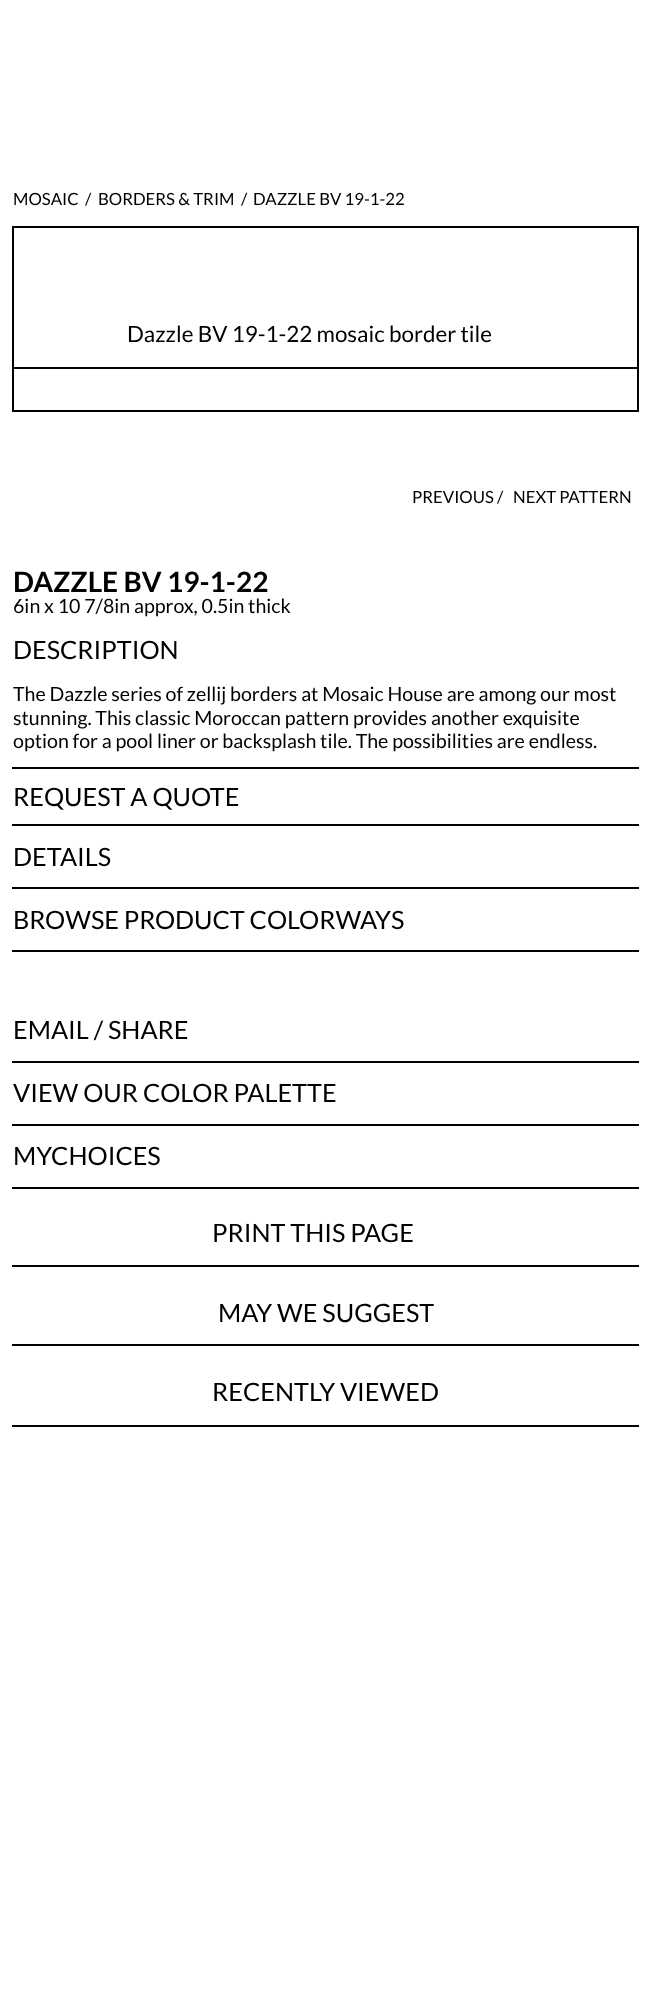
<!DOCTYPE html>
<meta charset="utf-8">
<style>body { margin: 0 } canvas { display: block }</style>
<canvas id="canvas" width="650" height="2007"></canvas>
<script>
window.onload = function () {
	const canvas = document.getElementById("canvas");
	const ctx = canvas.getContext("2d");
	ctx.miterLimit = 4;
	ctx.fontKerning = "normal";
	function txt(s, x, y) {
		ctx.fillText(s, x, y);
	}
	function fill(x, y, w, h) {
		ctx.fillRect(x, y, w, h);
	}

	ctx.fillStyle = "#FFFFFF";
	fill(0, 0, 650, 2007);
	ctx.strokeStyle = "#000000";
	ctx.lineWidth = 2;
	ctx.strokeRect(13, 227, 625, 141);
	ctx.fillStyle = "#000000";
	fill(637, 369, 2, 42);
	fill(12, 410, 627, 2);
	fill(12, 369, 2, 42);
	fill(12, 767, 627, 2);
	fill(12, 824, 627, 2);
	fill(12, 887, 627, 2);
	fill(12, 950, 627, 2);
	fill(12, 1061, 627, 2);
	fill(12, 1124, 627, 2);
	fill(12, 1187, 627, 2);
	fill(12, 1265, 627, 2);
	fill(12, 1344, 627, 2);
	fill(12, 1425, 627, 2);
	ctx.font = "16.75px Lato";
	txt("MOSAIC", 13, 205);
	txt("/", 85, 205);
	txt("BORDERS & TRIM", 98, 205);
	txt("/", 241, 205);
	txt("DAZZLE BV 19-1-22", 253, 205);
	ctx.font = "22.4px Lato";
	txt("Dazzle BV 19-1-22 mosaic border tile", 127, 342);
	ctx.font = "16.75px Lato";
	txt("PREVIOUS /", 412, 503);
	txt("NEXT PATTERN", 513, 503);
	ctx.font = "bold 28px Lato";
	txt("DAZZLE BV 19-1-22", 13, 592);
	ctx.font = "19.6px Lato";
	txt("6in x 10 7/8in approx, 0.5in thick", 13, 613);
	ctx.font = "25.25px Lato";
	txt("DESCRIPTION", 13, 659);
	ctx.font = "19.6px Lato";
	txt("The Dazzle series of zellij borders at Mosaic House are among our most", 13, 701);
	txt("stunning. This classic Moroccan pattern provides another exquisite", 13, 725);
	txt("option for a pool liner or backsplash tile. The possibilities are endless.", 13, 748);
	ctx.font = "25.25px Lato";
	txt("REQUEST A QUOTE", 13, 806);
	txt("DETAILS", 13, 866);
	txt("BROWSE PRODUCT COLORWAYS", 13, 929);
	txt("EMAIL / SHARE", 13, 1039);
	txt("VIEW OUR COLOR PALETTE", 13, 1102);
	txt("MYCHOICES", 13, 1165);
	txt("PRINT THIS PAGE", 212, 1242);
	txt("MAY WE SUGGEST", 218, 1322);
	txt("RECENTLY VIEWED", 212, 1401);
};
</script>
